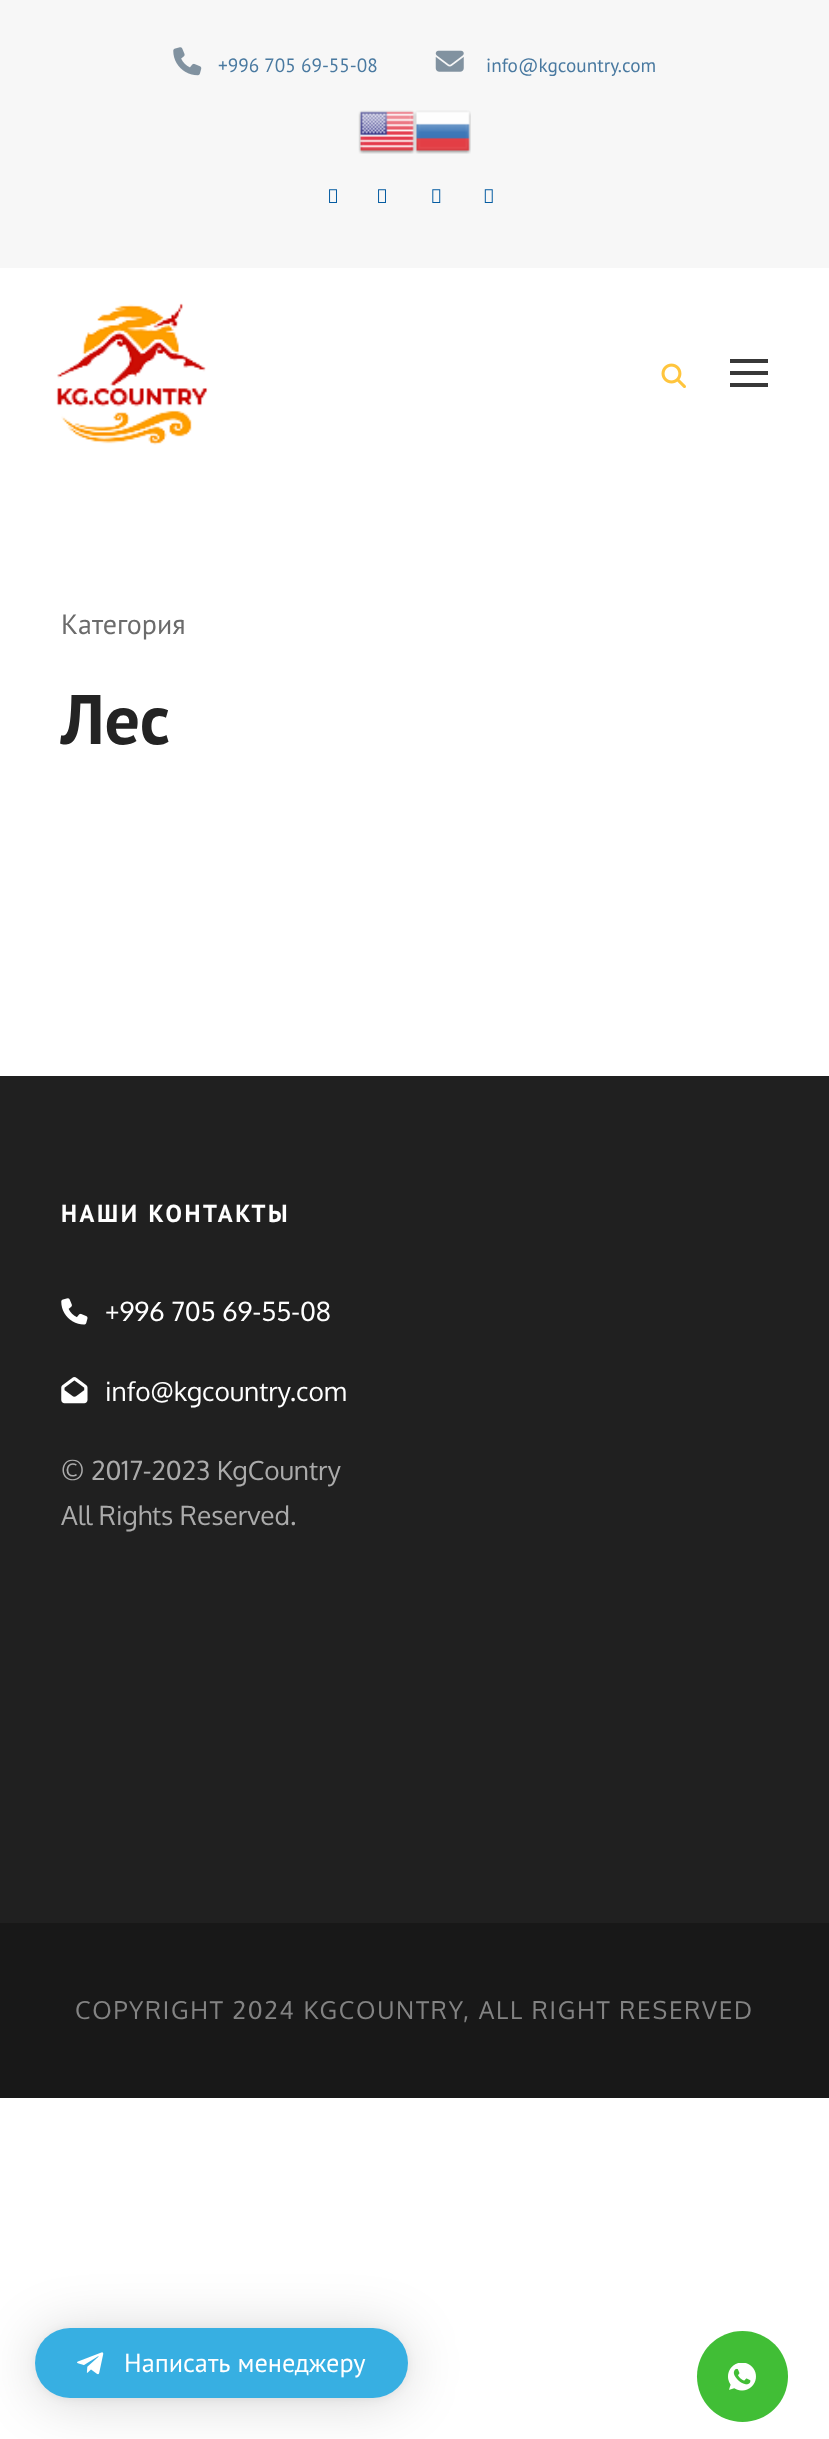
<!DOCTYPE html>
<meta charset="utf-8">
<style>body { margin: 0 } canvas { display: block }</style>
<canvas id="canvas" width="829" height="2439"></canvas>
<img id="img1" src="img_01.png" hidden>
<img id="img2" src="img_02.png" hidden>
<img id="img3" src="img_03.png" hidden>
<img id="img4" src="img_04.png" hidden>
<img id="img5" src="img_05.png" hidden>
<img id="img6" src="img_06.png" hidden>
<img id="img7" src="img_07.png" hidden>
<img id="img8" src="img_08.png" hidden>
<img id="img9" src="img_09.png" hidden>
<img id="img10" src="img_10.png" hidden>
<img id="img11" src="img_11.png" hidden>
<img id="img12" src="img_12.png" hidden>
<img id="img13" src="img_13.png" hidden>
<script>
window.onload = function () {
	const canvas = document.getElementById("canvas");
	const ctx = canvas.getContext("2d");
	ctx.miterLimit = 4;
	ctx.fontKerning = "normal";
	function txt(s, x, y) {
		ctx.fillText(s, x, y);
	}
	function fill(x, y, w, h) {
		ctx.fillRect(x, y, w, h);
	}
	function round(x, y, w, h, r) {
		ctx.beginPath();
		ctx.roundRect(x, y, w, h, r);
		ctx.fill();
	}
	function img(id, x, y, w, h) {
		ctx.drawImage(document.getElementById(id), x, y, w, h);
	}

	ctx.fillStyle = "#FFFFFF";
	fill(0, 0, 829, 2439);
	ctx.fillStyle = "#F7F7F7";
	fill(0, 0, 829, 268);
	img("img1", 173, 47, 29, 29);
	img("img2", 435, 50, 29, 22);
	img("img3", 358, 110, 57, 44);
	img("img4", 414, 110, 57, 44);
	img("img5", 329, 189, 8, 14);
	img("img5", 378, 189, 8, 14);
	img("img6", 432, 189, 9, 14);
	img("img7", 484, 189, 9, 14);
	img("img8", 56, 303, 153, 142);
	img("img9", 661, 363, 25, 25);
	ctx.fillStyle = "#383838";
	fill(730, 359, 38, 4);
	fill(730, 371, 38, 4);
	fill(730, 383, 38, 4);
	ctx.fillStyle = "#202020";
	fill(0, 1076, 829, 847);
	img("img10", 61, 1298, 27, 27);
	img("img11", 61, 1377, 27, 27);
	ctx.fillStyle = "#181818";
	fill(0, 1923, 829, 175);
	ctx.fillStyle = "rgba(0, 0, 0, 0.16)";
	ctx.filter = "blur(28px)";
	ctx.beginPath();
	ctx.roundRect(35, 2331, 373, 70, 35);
	ctx.fill();
	ctx.filter = "none";
	ctx.fillStyle = "rgba(0, 0, 0, 0.06)";
	ctx.filter = "blur(5px)";
	ctx.beginPath();
	ctx.roundRect(35, 2329, 373, 70, 35);
	ctx.fill();
	ctx.filter = "none";
	ctx.fillStyle = "#37AFE2";
	round(35, 2328, 373, 70, 35);
	img("img12", 77, 2352, 27, 23);
	ctx.fillStyle = "#41BE36";
	ctx.beginPath();
	ctx.arc(742.5, 2376.5, 45.5, 0, Math.PI * 2);
	ctx.fill();
	img("img13", 728, 2363, 28, 28);
	ctx.font = "19.25px PT Sans";
	ctx.fillStyle = "#4979A0";
	txt("+996 705 69-55-08", 218, 72);
	txt("info@kgcountry.com", 486, 72);
	ctx.font = "28px PT Sans";
	ctx.fillStyle = "#6B6B6B";
	txt("Категория", 61, 634);
	ctx.font = "bold 70px PT Sans";
	ctx.fillStyle = "#232323";
	txt("Лес", 61, 744);
	ctx.letterSpacing = "2.6px";
	ctx.font = "bold 24.5px PT Sans";
	ctx.fillStyle = "#FFFFFF";
	txt("НАШИ КОНТАКТЫ", 61, 1222);
	ctx.letterSpacing = "0px";
	ctx.font = "26.25px Oxygen";
	txt("+996 705 69-55-08", 105, 1321);
	txt("info@kgcountry.com", 105, 1401);
	ctx.fillStyle = "#ABABAB";
	txt("© 2017-2023 KgCountry", 61, 1480);
	txt("All Rights Reserved.", 61, 1525);
	ctx.letterSpacing = "1.75px";
	ctx.font = "24.5px Oxygen";
	ctx.fillStyle = "#838383";
	txt("COPYRIGHT 2024 KGCOUNTRY, ALL RIGHT RESERVED", 75, 2019);
	ctx.letterSpacing = "0px";
	ctx.font = "26.25px PT Sans";
	ctx.fillStyle = "#FFFFFF";
	txt("Написать менеджеру", 124, 2372);
};
</script>
